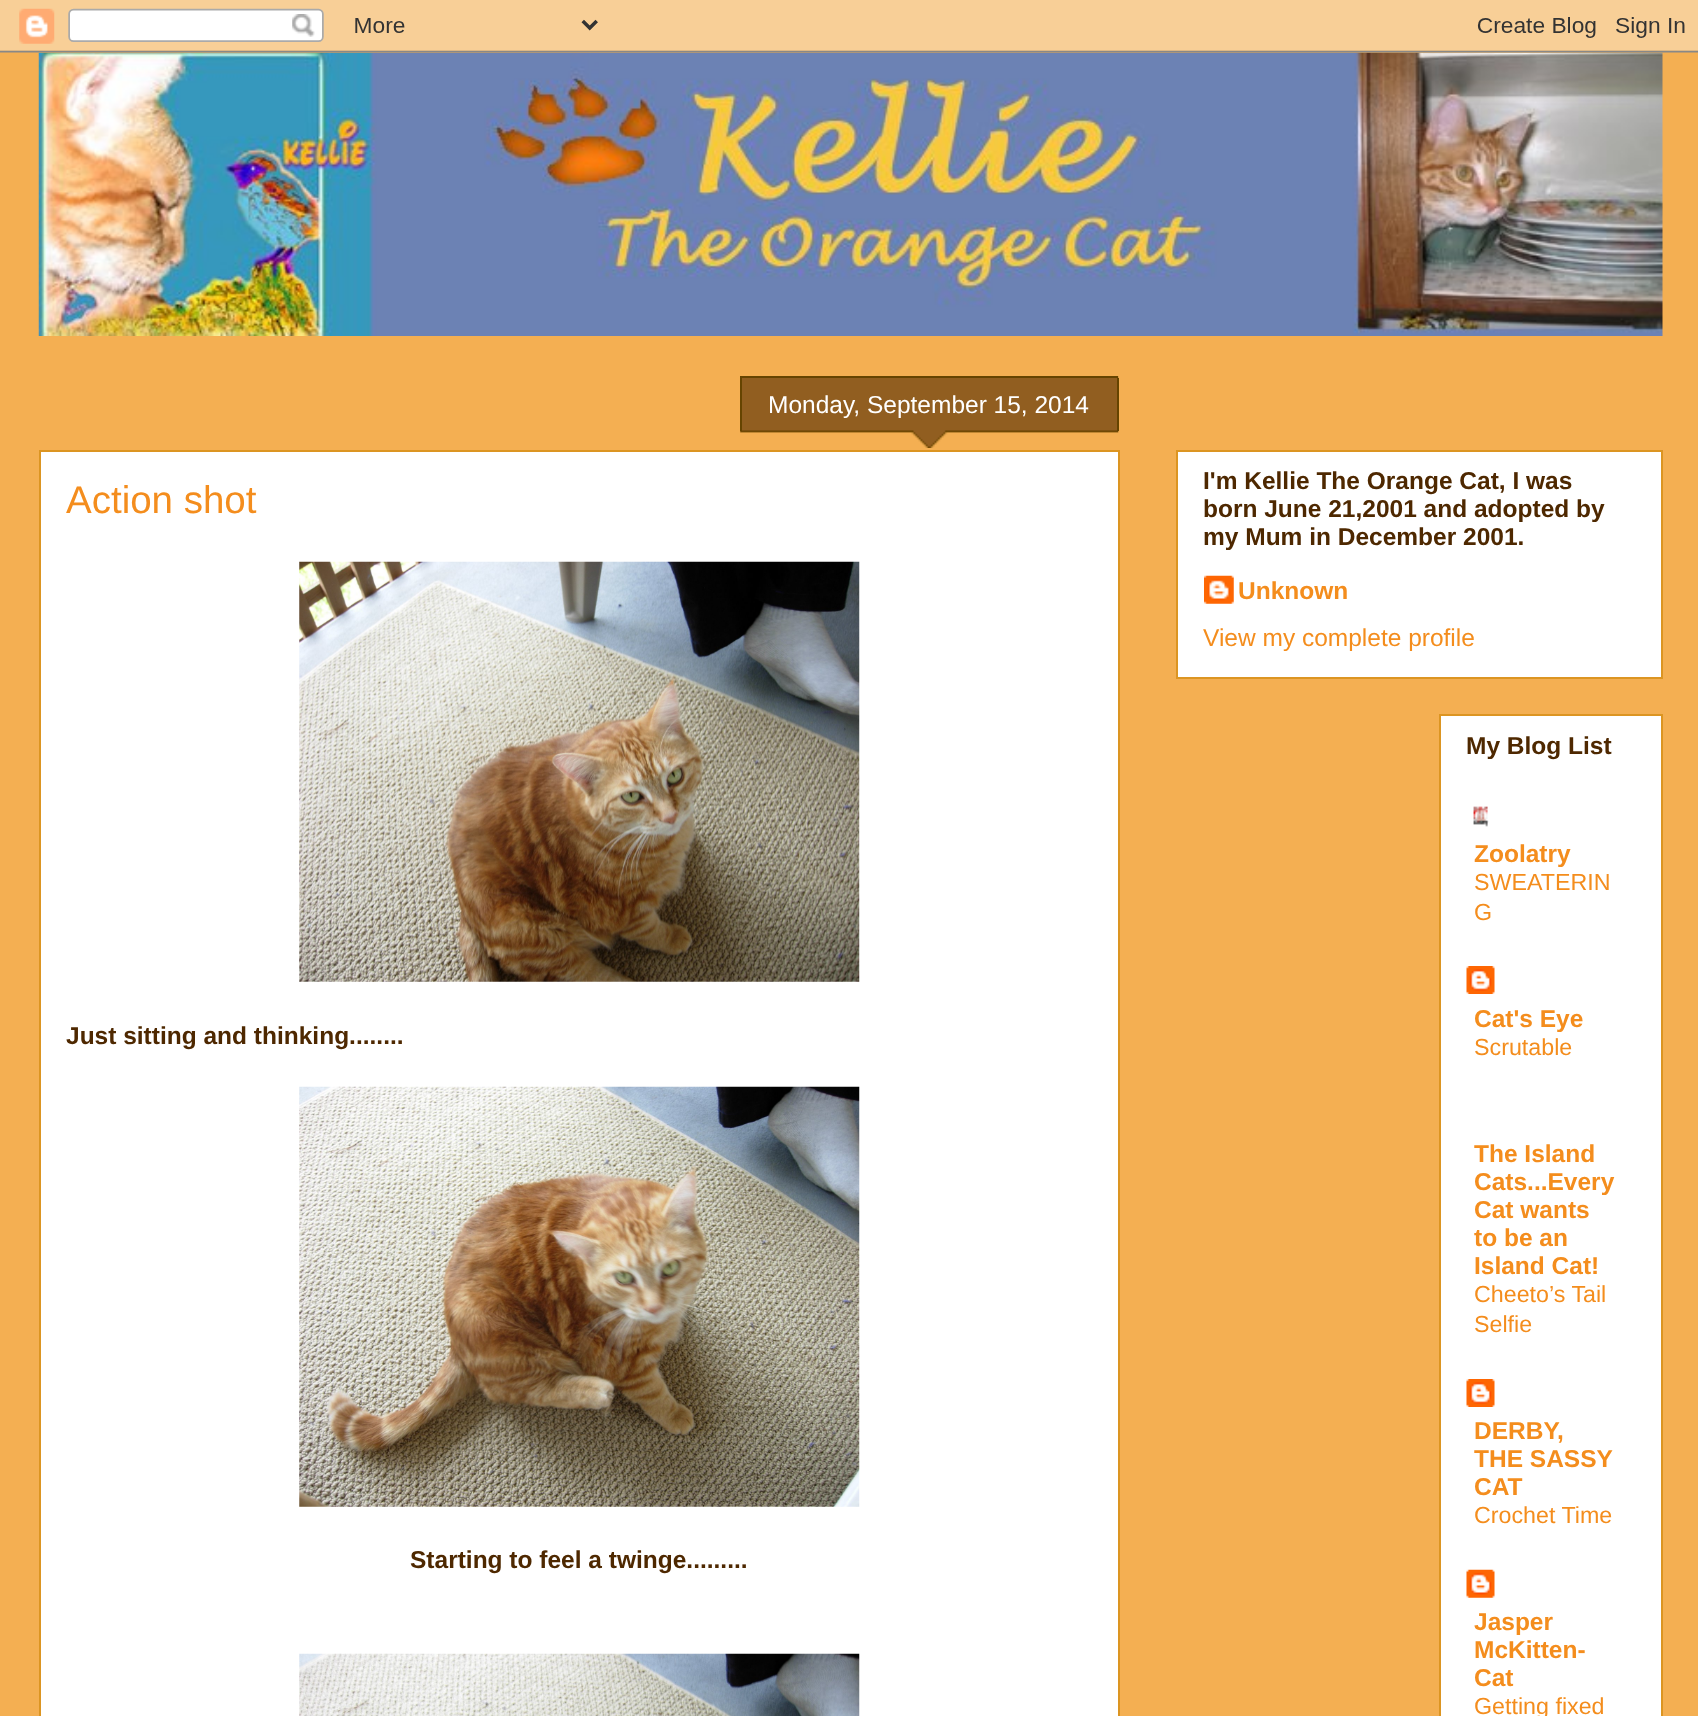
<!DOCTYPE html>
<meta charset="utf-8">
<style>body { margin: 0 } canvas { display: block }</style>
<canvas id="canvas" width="1698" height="1716"></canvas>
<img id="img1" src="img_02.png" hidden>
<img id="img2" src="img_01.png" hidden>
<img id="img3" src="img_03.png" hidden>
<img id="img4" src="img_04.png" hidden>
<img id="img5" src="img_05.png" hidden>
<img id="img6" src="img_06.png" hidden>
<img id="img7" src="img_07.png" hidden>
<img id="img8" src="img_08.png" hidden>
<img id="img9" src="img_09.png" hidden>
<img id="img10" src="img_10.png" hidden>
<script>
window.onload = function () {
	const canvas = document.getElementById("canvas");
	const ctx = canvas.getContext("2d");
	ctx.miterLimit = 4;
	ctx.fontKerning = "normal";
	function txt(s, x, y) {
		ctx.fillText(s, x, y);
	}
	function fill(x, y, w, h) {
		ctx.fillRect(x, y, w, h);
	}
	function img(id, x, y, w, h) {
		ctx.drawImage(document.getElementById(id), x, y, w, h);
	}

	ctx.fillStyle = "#F4AF52";
	fill(0, 0, 1698, 1716);
	img("img1", 38, 52, 1625, 284);
	img("img2", 0, 0, 1698, 53);
	ctx.fillStyle = "#FFFFFF";
	ctx.beginPath();
	ctx.rect(40, 451, 1079, 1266);
	ctx.fill();
	ctx.strokeStyle = "#DC9522";
	ctx.lineWidth = 2;
	ctx.stroke();
	img("img3", 740, 376, 379, 72);
	ctx.fillStyle = "#664400";
	fill(740, 376, 378, 2);
	fill(1117, 378, 2, 53);
	fill(740, 378, 2, 53);
	img("img4", 299, 561, 561, 421);
	img("img5", 299, 1086, 561, 421);
	img("img6", 299, 1653, 561, 63);
	ctx.fillStyle = "#FFFFFF";
	ctx.beginPath();
	ctx.rect(1177, 451, 485, 227);
	ctx.fill();
	ctx.stroke();
	img("img7", 1204, 575, 30, 29);
	ctx.beginPath();
	ctx.rect(1440, 715, 222, 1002);
	ctx.fill();
	ctx.stroke();
	img("img8", 1473, 806, 16, 21);
	img("img9", 1466, 966, 29, 28);
	img("img9", 1466, 1379, 29, 28);
	img("img10", 1466, 1569, 29, 29);
	ctx.font = "24.5px Liberation Sans";
	txt("Monday, September 15, 2014", 768, 413);
	ctx.font = "38.5px Liberation Sans";
	ctx.fillStyle = "#F48D1D";
	txt("Action shot", 66, 513);
	ctx.font = "bold 24.5px Liberation Sans";
	ctx.fillStyle = "#4E2800";
	txt("Just sitting and thinking........", 66, 1044);
	txt("Starting to feel a twinge.........", 410, 1568);
	txt("I'm Kellie The Orange Cat, I was", 1203, 489);
	txt("born June 21,2001 and adopted by", 1203, 517);
	txt("my Mum in December 2001.", 1203, 545);
	ctx.fillStyle = "#F48D1D";
	txt("Unknown", 1238, 599);
	ctx.font = "24.5px Liberation Sans";
	txt("View my complete profile", 1203, 646);
	ctx.font = "bold 24.5px Liberation Sans";
	ctx.fillStyle = "#4E2800";
	txt("My Blog List", 1466, 754);
	ctx.fillStyle = "#F48D1D";
	txt("Zoolatry", 1474, 862);
	ctx.font = "23.25px Liberation Sans";
	txt("SWEATERIN", 1474, 890);
	txt("G", 1474, 920);
	ctx.font = "bold 24.5px Liberation Sans";
	txt("Cat's Eye", 1474, 1027);
	ctx.font = "23.25px Liberation Sans";
	txt("Scrutable", 1474, 1055);
	ctx.font = "bold 24.5px Liberation Sans";
	txt("The Island", 1474, 1162);
	txt("Cats...Every", 1474, 1190);
	txt("Cat wants", 1474, 1218);
	txt("to be an", 1474, 1246);
	txt("Island Cat!", 1474, 1274);
	ctx.font = "23.25px Liberation Sans";
	txt("Cheeto’s Tail", 1474, 1302);
	txt("Selfie", 1474, 1332);
	ctx.font = "bold 24.5px Liberation Sans";
	txt("DERBY,", 1474, 1439);
	txt("THE SASSY", 1474, 1467);
	txt("CAT", 1474, 1495);
	ctx.font = "23.25px Liberation Sans";
	txt("Crochet Time", 1474, 1523);
	ctx.font = "bold 24.5px Liberation Sans";
	txt("Jasper", 1474, 1630);
	txt("McKitten-", 1474, 1658);
	txt("Cat", 1474, 1686);
	ctx.font = "23.25px Liberation Sans";
	txt("Getting fixed", 1474, 1714);
};
</script>
